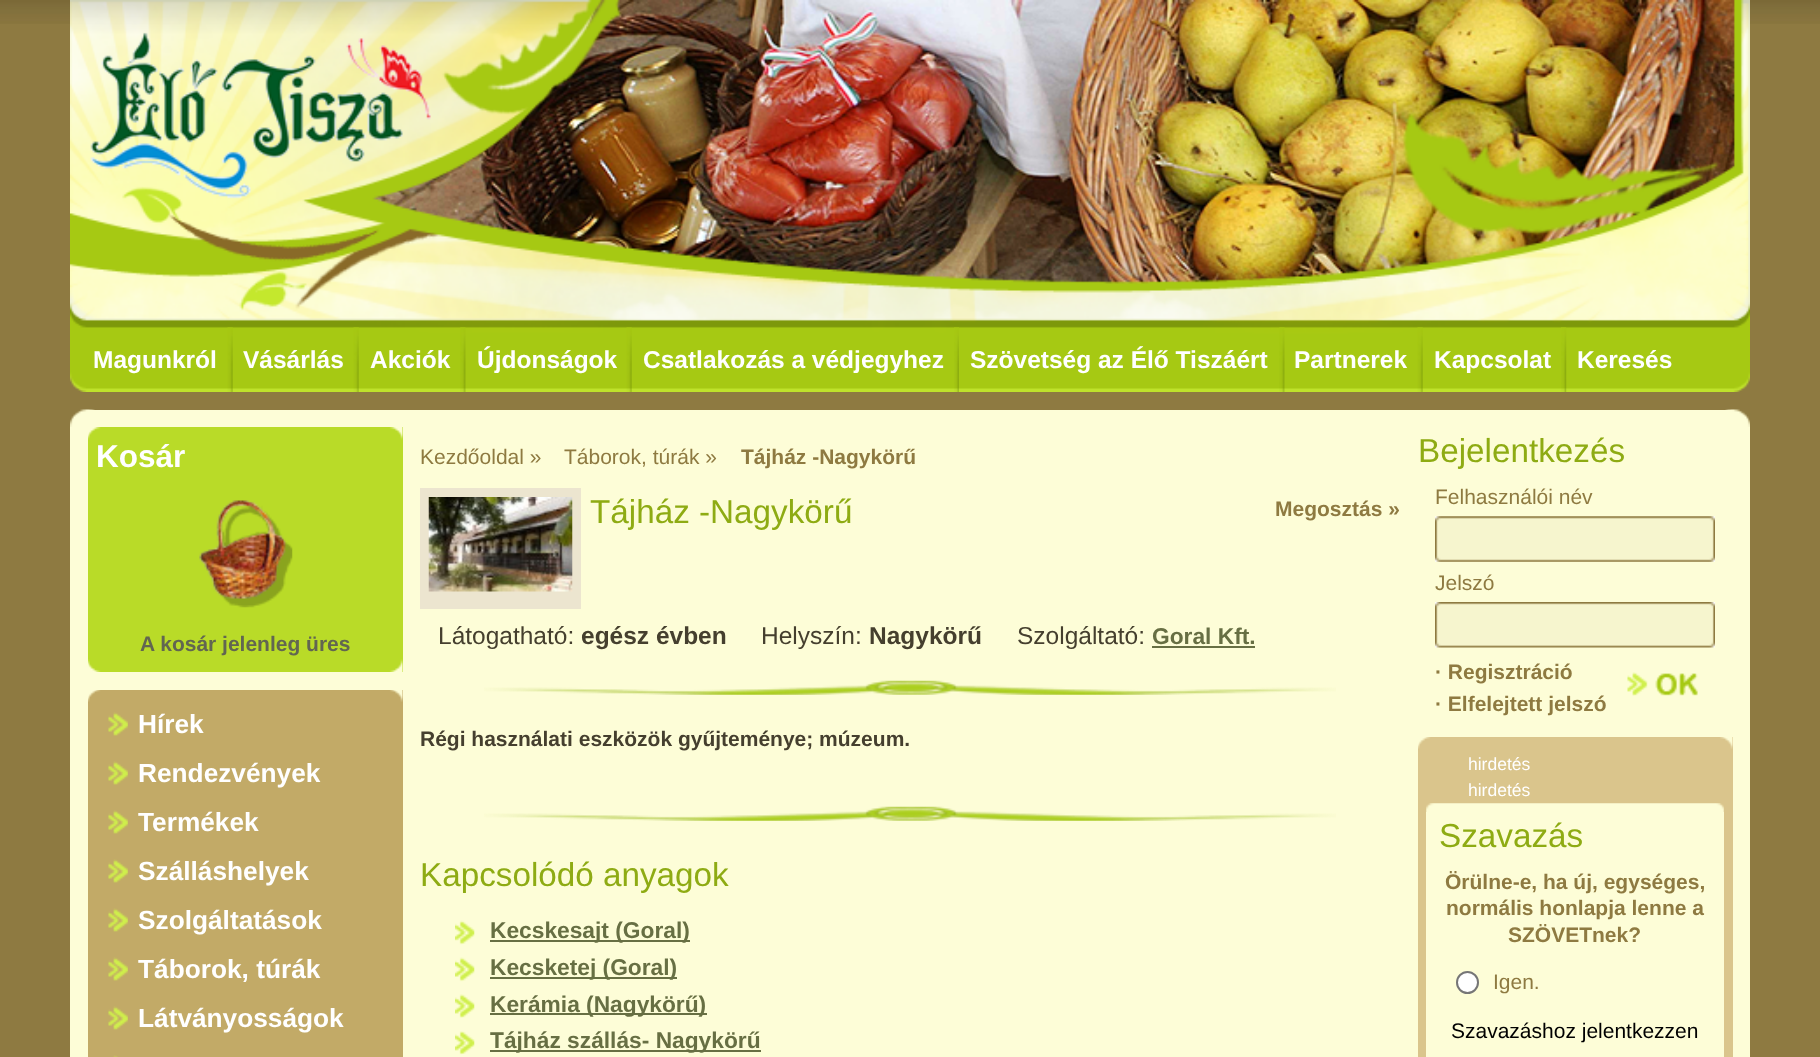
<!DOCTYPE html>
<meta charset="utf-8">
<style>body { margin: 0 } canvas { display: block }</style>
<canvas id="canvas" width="1820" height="1057"></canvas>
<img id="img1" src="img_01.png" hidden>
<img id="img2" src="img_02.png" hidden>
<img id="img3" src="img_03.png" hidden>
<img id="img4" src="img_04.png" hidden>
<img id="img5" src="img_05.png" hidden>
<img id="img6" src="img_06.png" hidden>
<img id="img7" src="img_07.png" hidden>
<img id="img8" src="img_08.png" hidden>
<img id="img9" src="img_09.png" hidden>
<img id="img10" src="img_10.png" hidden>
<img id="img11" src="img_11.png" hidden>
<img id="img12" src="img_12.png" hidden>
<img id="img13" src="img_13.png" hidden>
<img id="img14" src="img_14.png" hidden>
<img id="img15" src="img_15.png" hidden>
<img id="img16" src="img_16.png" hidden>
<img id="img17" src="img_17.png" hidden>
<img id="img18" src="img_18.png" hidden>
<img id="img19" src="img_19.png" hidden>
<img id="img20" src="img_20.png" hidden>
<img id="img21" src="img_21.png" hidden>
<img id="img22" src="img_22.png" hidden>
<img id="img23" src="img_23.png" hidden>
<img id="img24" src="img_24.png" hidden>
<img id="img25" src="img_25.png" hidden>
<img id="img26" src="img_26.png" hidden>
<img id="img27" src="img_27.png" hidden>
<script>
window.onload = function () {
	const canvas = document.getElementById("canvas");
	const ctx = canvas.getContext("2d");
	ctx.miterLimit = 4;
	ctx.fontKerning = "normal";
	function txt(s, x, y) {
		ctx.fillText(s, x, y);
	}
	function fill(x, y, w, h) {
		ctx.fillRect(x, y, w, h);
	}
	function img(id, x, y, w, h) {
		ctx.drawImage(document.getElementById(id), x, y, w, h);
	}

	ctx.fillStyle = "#8E7A41";
	fill(0, 0, 1820, 1057);
	img("img1", 0, 0, 1820, 24);
	img("img2", 70, 0, 1680, 392);
	img("img3", 227, 327, 6, 65);
	img("img3", 353, 327, 6, 65);
	img("img4", 460, 327, 6, 65);
	img("img3", 626, 327, 6, 65);
	img("img5", 954, 327, 5, 65);
	img("img6", 1279, 327, 6, 65);
	img("img7", 1417, 327, 6, 65);
	img("img8", 1561, 327, 6, 65);
	img("img9", 70, 409, 25, 18);
	img("img10", 1725, 409, 25, 18);
	ctx.fillStyle = "#FDFDD7";
	fill(88, 410, 1644, 17);
	fill(70, 427, 1680, 630);
	ctx.fillStyle = "#B9DB28";
	fill(88, 427, 315, 245);
	img("img11", 88, 427, 315, 13);
	img("img12", 199, 500, 94, 108);
	img("img13", 88, 659, 315, 13);
	ctx.fillStyle = "#C2AA67";
	fill(88, 690, 315, 367);
	img("img14", 88, 690, 315, 12);
	img("img15", 108, 712, 20, 24);
	img("img15", 108, 761, 20, 24);
	img("img15", 108, 810, 20, 24);
	img("img15", 108, 859, 20, 24);
	img("img15", 108, 908, 20, 24);
	img("img15", 108, 957, 20, 24);
	img("img15", 108, 1006, 20, 24);
	img("img16", 113, 1055, 5, 2);
	ctx.fillStyle = "#ECE5CF";
	fill(420, 488, 161, 121);
	img("img17", 428, 497, 145, 95);
	ctx.fillStyle = "#676F43";
	fill(1152, 646, 103, 2);
	img("img18", 484, 680, 852, 15);
	img("img18", 484, 806, 852, 15);
	img("img19", 455, 920, 20, 25);
	fill(490, 940, 200, 2);
	img("img20", 455, 957, 20, 25);
	fill(490, 977, 187, 2);
	img("img21", 455, 994, 20, 24);
	fill(490, 1013, 217, 2);
	img("img22", 455, 1031, 20, 24);
	fill(490, 1050, 271, 2);
	img("img23", 1435, 516, 280, 46);
	img("img24", 1435, 602, 280, 46);
	img("img25", 1627, 672, 71, 24);
	ctx.fillStyle = "#DAC58C";
	fill(1418, 737, 315, 320);
	img("img26", 1418, 737, 315, 12);
	img("img27", 1426, 803, 298, 9);
	ctx.fillStyle = "#FDFDD7";
	fill(1426, 812, 298, 245);
	ctx.fillStyle = "#FFFFFF";
	ctx.beginPath();
	ctx.arc(1467.5, 982.5, 10.5, 0, Math.PI * 2);
	ctx.fill();
	ctx.strokeStyle = "#767676";
	ctx.lineWidth = 2;
	ctx.stroke();
	ctx.font = "bold 24.5px Liberation Sans";
	txt("Magunkról", 93, 368);
	txt("Vásárlás", 243, 368);
	txt("Akciók", 370, 368);
	txt("Újdonságok", 477, 368);
	txt("Csatlakozás a védjegyhez", 643, 368);
	txt("Szövetség az Élő Tiszáért", 970, 368);
	txt("Partnerek", 1294, 368);
	txt("Kapcsolat", 1434, 368);
	txt("Keresés", 1577, 368);
	ctx.font = "bold 31.5px Liberation Sans";
	txt("Kosár", 96, 467);
	ctx.font = "bold 21px Liberation Sans";
	ctx.fillStyle = "#626651";
	txt("A kosár jelenleg üres", 140, 651);
	ctx.font = "bold 26.25px Liberation Sans";
	ctx.fillStyle = "#FFFFFF";
	txt("Hírek", 138, 733);
	txt("Rendezvények", 138, 782);
	txt("Termékek", 138, 831);
	txt("Szálláshelyek", 138, 880);
	txt("Szolgáltatások", 138, 929);
	txt("Táborok, túrák", 138, 978);
	txt("Látványosságok", 138, 1027);
	ctx.font = "21px Liberation Sans";
	ctx.fillStyle = "#8E7A41";
	txt("Kezdőoldal »", 420, 464);
	txt("Táborok, túrák »", 564, 464);
	ctx.font = "bold 21px Liberation Sans";
	txt("Tájház -Nagykörű", 741, 464);
	ctx.font = "33.25px Liberation Sans";
	ctx.fillStyle = "#8EAB13";
	txt("Tájház -Nagykörű", 590, 523);
	ctx.font = "bold 21px Liberation Sans";
	ctx.fillStyle = "#8E7A41";
	txt("Megosztás »", 1275, 516);
	ctx.font = "24.5px Liberation Sans";
	ctx.fillStyle = "#453F2E";
	txt("Látogatható:", 438, 644);
	ctx.font = "bold 24.5px Liberation Sans";
	txt("egész évben", 581, 644);
	ctx.font = "24.5px Liberation Sans";
	txt("Helyszín:", 761, 644);
	ctx.font = "bold 24.5px Liberation Sans";
	txt("Nagykörű", 869, 644);
	ctx.font = "24.5px Liberation Sans";
	txt("Szolgáltató:", 1017, 644);
	ctx.font = "bold 22.75px Liberation Sans";
	ctx.fillStyle = "#676F43";
	txt("Goral Kft.", 1152, 644);
	ctx.font = "bold 21px Liberation Sans";
	ctx.fillStyle = "#453F2E";
	txt("Régi használati eszközök gyűjteménye; múzeum.", 420, 746);
	ctx.font = "33.25px Liberation Sans";
	ctx.fillStyle = "#8EAB13";
	txt("Kapcsolódó anyagok", 420, 886);
	ctx.font = "bold 22.75px Liberation Sans";
	ctx.fillStyle = "#676F43";
	txt("Kecskesajt (Goral)", 490, 938);
	txt("Kecsketej (Goral)", 490, 975);
	txt("Kerámia (Nagykörű)", 490, 1012);
	txt("Tájház szállás- Nagykörű", 490, 1048);
	ctx.font = "33.25px Liberation Sans";
	ctx.fillStyle = "#8EAB13";
	txt("Bejelentkezés", 1418, 462);
	ctx.font = "21px Liberation Sans";
	ctx.fillStyle = "#8E7A41";
	txt("Felhasználói név", 1435, 504);
	txt("Jelszó", 1435, 590);
	ctx.font = "bold 21px Liberation Sans";
	txt("· Regisztráció", 1435, 679);
	txt("· Elfelejtett jelszó", 1435, 711);
	ctx.font = "17.5px Liberation Sans";
	ctx.fillStyle = "#FFFFFF";
	txt("hirdetés", 1468, 770);
	txt("hirdetés", 1468, 796);
	ctx.font = "33.25px Liberation Sans";
	ctx.fillStyle = "#8EAB13";
	txt("Szavazás", 1439, 847);
	ctx.font = "bold 21px Liberation Sans";
	ctx.fillStyle = "#8E7A41";
	txt("Örülne-e, ha új, egységes,", 1445, 889);
	txt("normális honlapja lenne a", 1446, 915);
	txt("SZÖVETnek?", 1508, 942);
	ctx.font = "21px Liberation Sans";
	txt("Igen.", 1493, 989);
	ctx.fillStyle = "#000000";
	txt("Szavazáshoz jelentkezzen", 1451, 1038);
};
</script>
